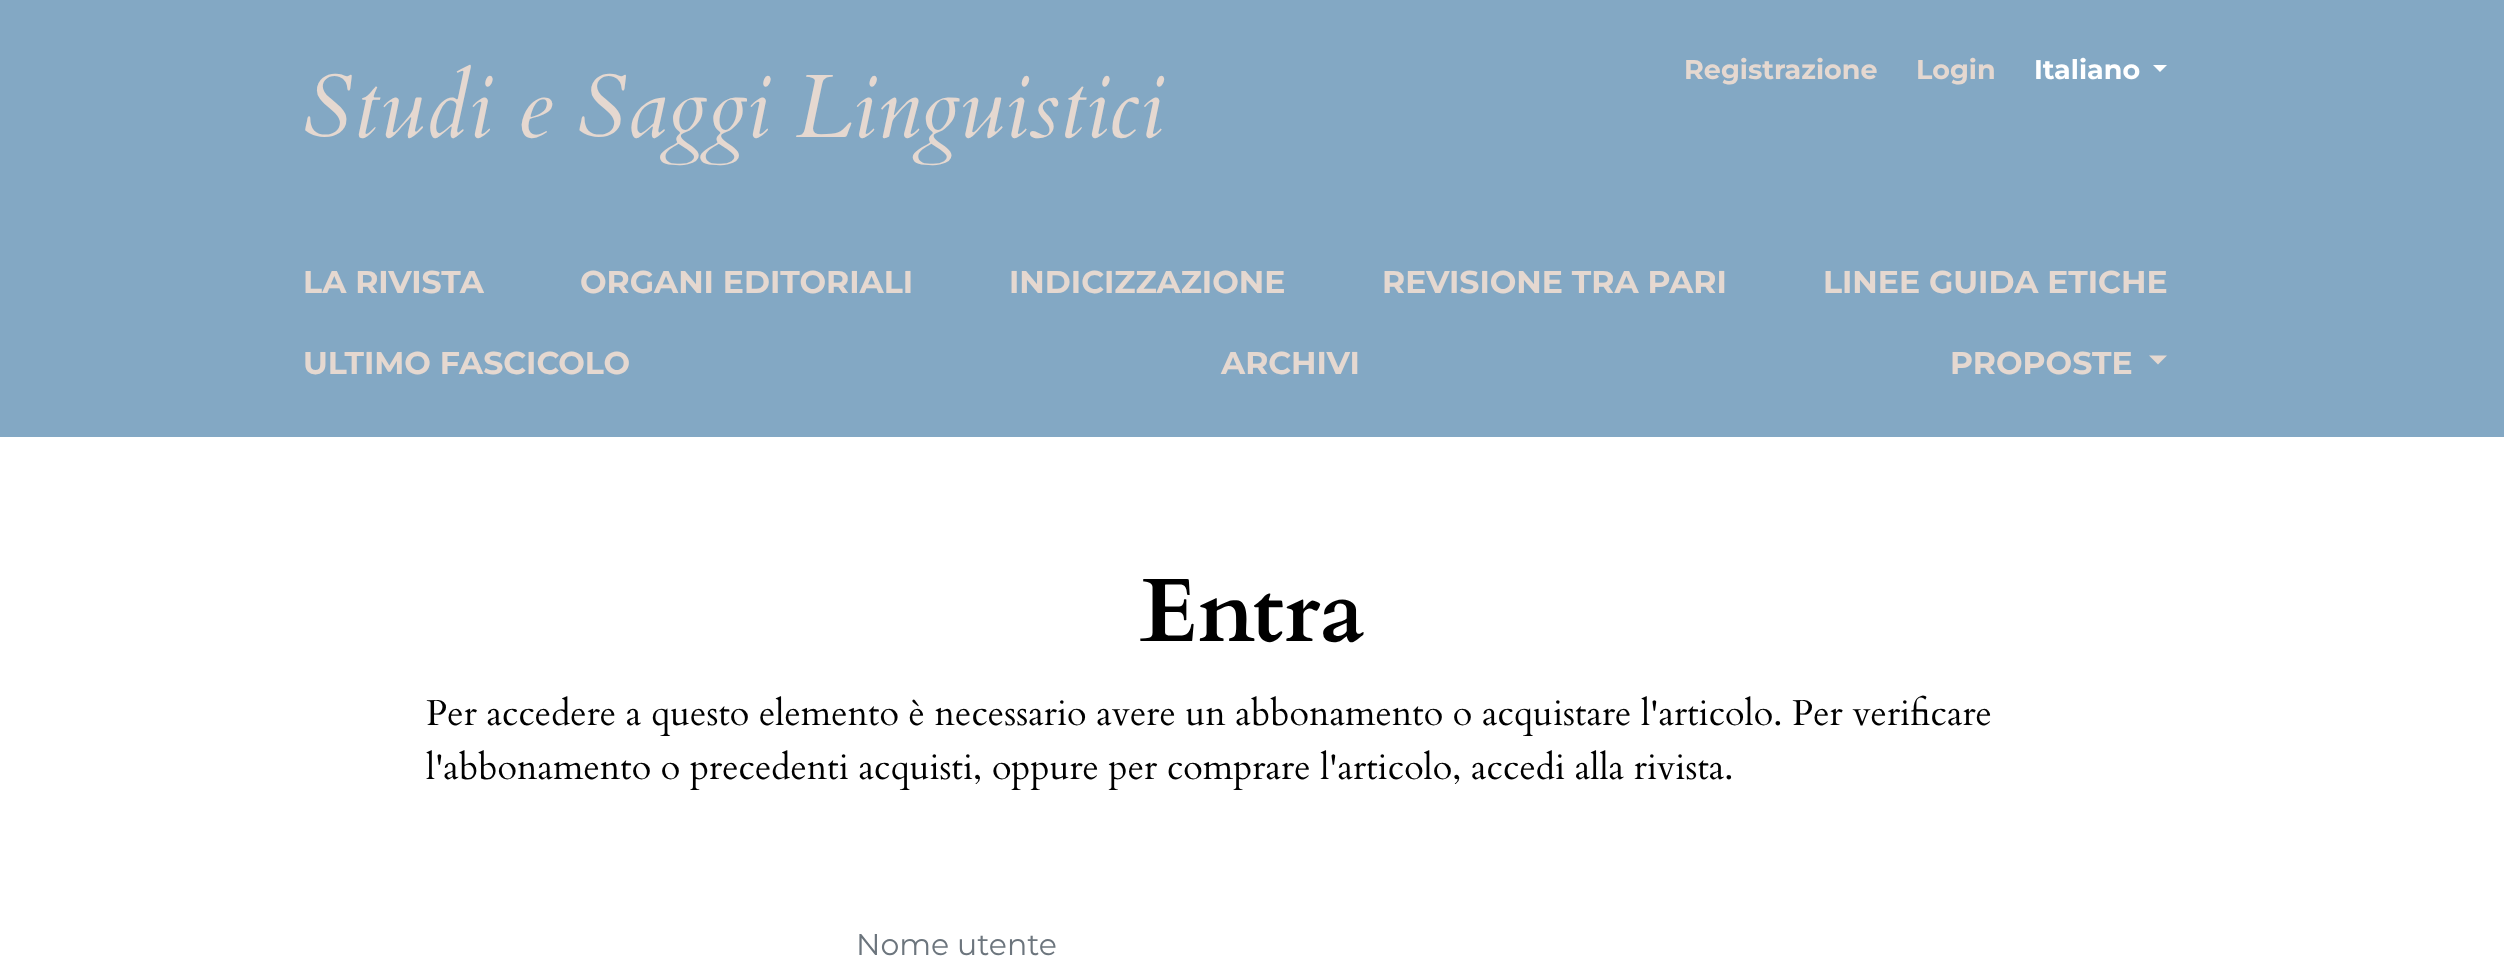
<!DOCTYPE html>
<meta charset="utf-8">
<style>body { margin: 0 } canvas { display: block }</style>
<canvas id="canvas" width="2504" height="976"></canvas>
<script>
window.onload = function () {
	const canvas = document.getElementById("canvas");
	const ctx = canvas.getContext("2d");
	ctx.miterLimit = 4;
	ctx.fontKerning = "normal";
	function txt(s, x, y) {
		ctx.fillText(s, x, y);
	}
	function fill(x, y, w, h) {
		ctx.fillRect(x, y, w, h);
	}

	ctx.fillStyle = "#FFFFFF";
	fill(0, 0, 2504, 976);
	ctx.fillStyle = "#83A8C4";
	fill(0, 0, 2504, 437);
	ctx.fillStyle = "#FFFFFF";
	ctx.beginPath();
	ctx.moveTo(2153, 65);
	ctx.lineTo(2167, 65);
	ctx.lineTo(2160, 72);
	ctx.closePath();
	ctx.fill();
	ctx.fillStyle = "#E5D8D0";
	ctx.beginPath();
	ctx.moveTo(2149, 355.5);
	ctx.lineTo(2167, 355.5);
	ctx.lineTo(2158, 364.5);
	ctx.closePath();
	ctx.fill();
	ctx.font = "italic 90px Cardo";
	txt("Studi e Saggi Linguistici", 303, 137);
	ctx.font = "bold 27px Montserrat";
	txt("Registrazione", 1684, 79);
	txt("Login", 1916, 79);
	ctx.fillStyle = "#FFFFFF";
	txt("Italiano", 2034, 79);
	ctx.font = "bold 31.5px Montserrat";
	ctx.fillStyle = "#E5D8D0";
	txt("LA RIVISTA", 303, 293);
	txt("ORGANI EDITORIALI", 580, 293);
	txt("INDICIZZAZIONE", 1009, 293);
	txt("REVISIONE TRA PARI", 1382, 293);
	txt("LINEE GUIDA ETICHE", 1823, 293);
	txt("ULTIMO FASCICOLO", 303, 374);
	txt("ARCHIVI", 1221, 374);
	txt("PROPOSTE", 1950, 374);
	ctx.font = "bold 90px Cardo";
	ctx.fillStyle = "#000000";
	txt("Entra", 1140, 641);
	ctx.font = "36px Cardo";
	txt("Per accedere a questo elemento è necessario avere un abbonamento o acquistare l'articolo. Per verificare", 426, 725);
	txt("l'abbonamento o precedenti acquisti, oppure per comprare l'articolo, accedi alla rivista.", 426, 779);
	ctx.font = "30px Montserrat";
	ctx.fillStyle = "#6C757D";
	txt("Nome utente", 856, 955);
};
</script>
